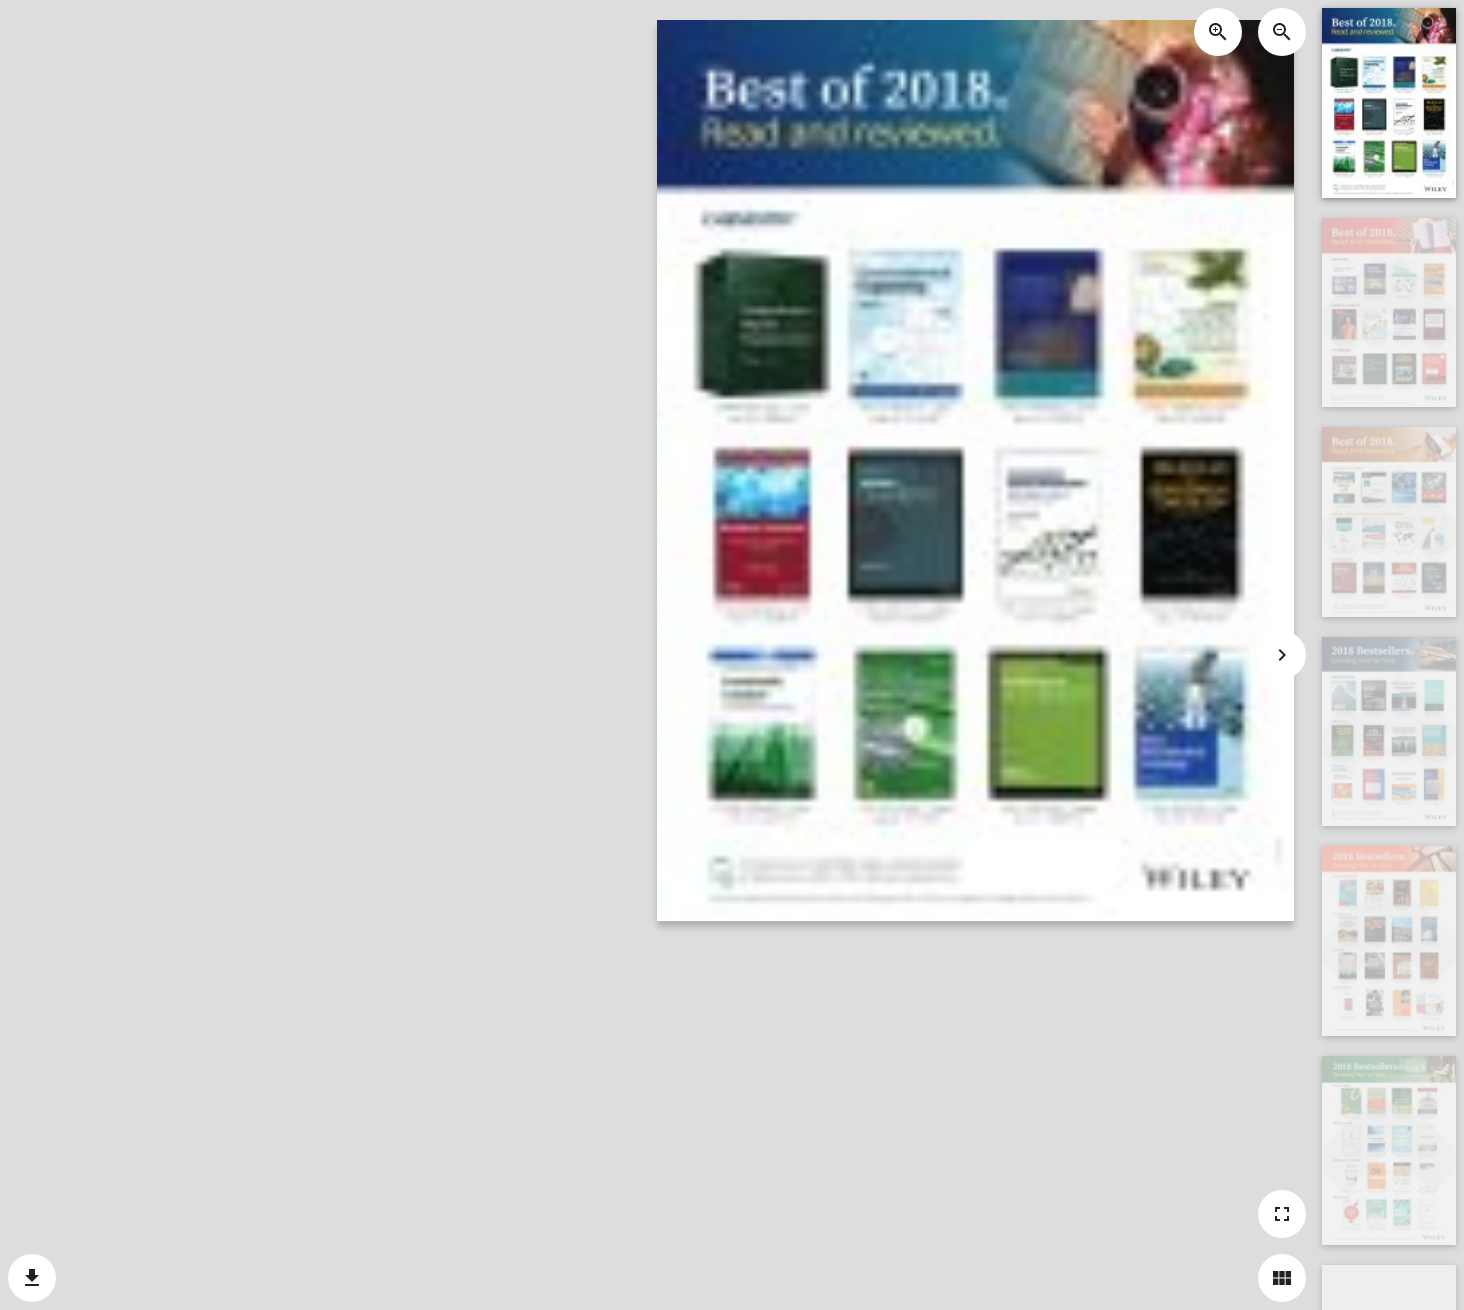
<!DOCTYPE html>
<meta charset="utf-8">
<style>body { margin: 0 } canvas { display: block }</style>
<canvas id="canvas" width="1464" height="1310"></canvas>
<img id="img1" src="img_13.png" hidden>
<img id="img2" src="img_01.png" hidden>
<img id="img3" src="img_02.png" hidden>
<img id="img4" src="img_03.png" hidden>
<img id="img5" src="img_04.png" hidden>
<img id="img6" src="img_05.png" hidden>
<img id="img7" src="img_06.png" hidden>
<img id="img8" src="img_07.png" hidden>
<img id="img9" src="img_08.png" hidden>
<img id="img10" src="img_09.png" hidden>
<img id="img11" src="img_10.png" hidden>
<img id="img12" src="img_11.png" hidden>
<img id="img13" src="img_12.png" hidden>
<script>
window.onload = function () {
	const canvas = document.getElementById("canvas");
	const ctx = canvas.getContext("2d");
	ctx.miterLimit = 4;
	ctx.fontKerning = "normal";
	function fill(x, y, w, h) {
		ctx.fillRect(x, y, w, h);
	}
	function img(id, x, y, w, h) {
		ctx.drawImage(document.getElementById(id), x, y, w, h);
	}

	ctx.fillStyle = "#DDDDDD";
	fill(0, 0, 1464, 1310);
	ctx.fillStyle = "rgba(0, 0, 0, 0.2)";
	ctx.filter = "blur(3px)";
	ctx.beginPath();
	ctx.rect(657, 26, 637, 901);
	ctx.fill();
	ctx.filter = "none";
	img("img1", 657, 20, 637, 898);
	ctx.fillStyle = "#FFFFFF";
	ctx.beginPath();
	ctx.arc(1218, 32, 24, 0, Math.PI * 2);
	ctx.fill();
	img("img2", 1209, 23, 18, 18);
	ctx.beginPath();
	ctx.arc(1282, 32, 24, 0, Math.PI * 2);
	ctx.fill();
	img("img3", 1273, 23, 18, 18);
	ctx.beginPath();
	ctx.arc(1282, 655, 24, 0, Math.PI * 2);
	ctx.fill();
	img("img4", 1278, 649, 8, 12);
	ctx.beginPath();
	ctx.arc(32, 1278, 24, 0, Math.PI * 2);
	ctx.fill();
	img("img5", 25, 1269, 14, 17);
	ctx.beginPath();
	ctx.arc(1282, 1214, 24, 0, Math.PI * 2);
	ctx.fill();
	img("img6", 1275, 1207, 14, 14);
	ctx.beginPath();
	ctx.arc(1282, 1278, 24, 0, Math.PI * 2);
	ctx.fill();
	img("img7", 1273, 1271, 18, 14);
	ctx.fillStyle = "rgba(0, 0, 0, 0.16)";
	ctx.filter = "blur(5px)";
	ctx.beginPath();
	ctx.rect(1322, 10, 134, 190);
	ctx.fill();
	ctx.filter = "none";
	ctx.fillStyle = "rgba(0, 0, 0, 0.26)";
	ctx.filter = "blur(2.5px)";
	ctx.beginPath();
	ctx.rect(1322, 10, 134, 190);
	ctx.fill();
	ctx.filter = "none";
	ctx.fillStyle = "#FFFFFF";
	fill(1322, 197, 134, 1);
	img("img8", 1322, 8, 134, 189);
	ctx.fillStyle = "rgba(110, 110, 110, 0.16)";
	ctx.filter = "blur(5px)";
	ctx.beginPath();
	ctx.rect(1322, 220, 134, 189);
	ctx.fill();
	ctx.filter = "none";
	ctx.fillStyle = "rgba(110, 110, 110, 0.26)";
	ctx.filter = "blur(2.5px)";
	ctx.beginPath();
	ctx.rect(1322, 220, 134, 189);
	ctx.fill();
	ctx.filter = "none";
	ctx.fillStyle = "#EEEEEE";
	fill(1322, 218, 134, 189);
	ctx.beginPath();
	ctx.arc(1389, 312, 22, 0, Math.PI * 2);
	ctx.strokeStyle = "#E6E6E6";
	ctx.lineWidth = 4;
	ctx.stroke();
	ctx.save();
	ctx.beginPath();
	ctx.rect(1322, 218, 134, 189);
	ctx.clip();
	ctx.fillStyle = "#E6E6E6";
	ctx.beginPath();
	ctx.moveTo(1379, 254);
	ctx.lineTo(1413, 288);
	ctx.lineTo(1345, 356);
	ctx.lineTo(1311, 322);
	ctx.closePath();
	ctx.fill();
	ctx.beginPath();
	ctx.moveTo(1365, 288);
	ctx.lineTo(1399, 254);
	ctx.lineTo(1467, 322);
	ctx.lineTo(1433, 356);
	ctx.closePath();
	ctx.fill();
	ctx.restore();
	img("img9", 1322, 218, 134, 189);
	ctx.fillStyle = "rgba(110, 110, 110, 0.16)";
	ctx.filter = "blur(5px)";
	ctx.beginPath();
	ctx.rect(1322, 429, 134, 190);
	ctx.fill();
	ctx.filter = "none";
	ctx.fillStyle = "rgba(110, 110, 110, 0.26)";
	ctx.filter = "blur(2.5px)";
	ctx.beginPath();
	ctx.rect(1322, 429, 134, 190);
	ctx.fill();
	ctx.filter = "none";
	ctx.fillStyle = "#EEEEEE";
	fill(1322, 427, 134, 190);
	ctx.beginPath();
	ctx.arc(1389, 522, 22, 0, Math.PI * 2);
	ctx.stroke();
	ctx.save();
	ctx.beginPath();
	ctx.rect(1322, 427, 134, 190);
	ctx.clip();
	ctx.fillStyle = "#E6E6E6";
	ctx.beginPath();
	ctx.moveTo(1379, 464);
	ctx.lineTo(1413, 498);
	ctx.lineTo(1345, 566);
	ctx.lineTo(1311, 532);
	ctx.closePath();
	ctx.fill();
	ctx.beginPath();
	ctx.moveTo(1365, 498);
	ctx.lineTo(1399, 464);
	ctx.lineTo(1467, 532);
	ctx.lineTo(1433, 566);
	ctx.closePath();
	ctx.fill();
	ctx.restore();
	img("img10", 1322, 427, 134, 190);
	ctx.fillStyle = "rgba(110, 110, 110, 0.16)";
	ctx.filter = "blur(5px)";
	ctx.beginPath();
	ctx.rect(1322, 639, 134, 189);
	ctx.fill();
	ctx.filter = "none";
	ctx.fillStyle = "rgba(110, 110, 110, 0.26)";
	ctx.filter = "blur(2.5px)";
	ctx.beginPath();
	ctx.rect(1322, 639, 134, 189);
	ctx.fill();
	ctx.filter = "none";
	ctx.fillStyle = "#EEEEEE";
	fill(1322, 637, 134, 189);
	ctx.beginPath();
	ctx.arc(1389, 731, 22, 0, Math.PI * 2);
	ctx.stroke();
	ctx.save();
	ctx.beginPath();
	ctx.rect(1322, 637, 134, 189);
	ctx.clip();
	ctx.fillStyle = "#E6E6E6";
	ctx.beginPath();
	ctx.moveTo(1379, 673);
	ctx.lineTo(1413, 707);
	ctx.lineTo(1345, 775);
	ctx.lineTo(1311, 741);
	ctx.closePath();
	ctx.fill();
	ctx.beginPath();
	ctx.moveTo(1365, 707);
	ctx.lineTo(1399, 673);
	ctx.lineTo(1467, 741);
	ctx.lineTo(1433, 775);
	ctx.closePath();
	ctx.fill();
	ctx.restore();
	img("img11", 1322, 637, 134, 189);
	ctx.fillStyle = "rgba(110, 110, 110, 0.16)";
	ctx.filter = "blur(5px)";
	ctx.beginPath();
	ctx.rect(1322, 848, 134, 190);
	ctx.fill();
	ctx.filter = "none";
	ctx.fillStyle = "rgba(110, 110, 110, 0.26)";
	ctx.filter = "blur(2.5px)";
	ctx.beginPath();
	ctx.rect(1322, 848, 134, 190);
	ctx.fill();
	ctx.filter = "none";
	ctx.fillStyle = "#EEEEEE";
	fill(1322, 846, 134, 190);
	ctx.beginPath();
	ctx.arc(1389, 941, 22, 0, Math.PI * 2);
	ctx.stroke();
	ctx.save();
	ctx.beginPath();
	ctx.rect(1322, 846, 134, 190);
	ctx.clip();
	ctx.fillStyle = "#E6E6E6";
	ctx.beginPath();
	ctx.moveTo(1379, 883);
	ctx.lineTo(1413, 917);
	ctx.lineTo(1345, 985);
	ctx.lineTo(1311, 951);
	ctx.closePath();
	ctx.fill();
	ctx.beginPath();
	ctx.moveTo(1365, 917);
	ctx.lineTo(1399, 883);
	ctx.lineTo(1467, 951);
	ctx.lineTo(1433, 985);
	ctx.closePath();
	ctx.fill();
	ctx.restore();
	img("img12", 1322, 846, 134, 190);
	ctx.fillStyle = "rgba(110, 110, 110, 0.16)";
	ctx.filter = "blur(5px)";
	ctx.beginPath();
	ctx.rect(1322, 1058, 134, 189);
	ctx.fill();
	ctx.filter = "none";
	ctx.fillStyle = "rgba(110, 110, 110, 0.26)";
	ctx.filter = "blur(2.5px)";
	ctx.beginPath();
	ctx.rect(1322, 1058, 134, 189);
	ctx.fill();
	ctx.filter = "none";
	ctx.fillStyle = "#EEEEEE";
	fill(1322, 1056, 134, 189);
	ctx.beginPath();
	ctx.arc(1389, 1150, 22, 0, Math.PI * 2);
	ctx.stroke();
	ctx.save();
	ctx.beginPath();
	ctx.rect(1322, 1056, 134, 189);
	ctx.clip();
	ctx.fillStyle = "#E6E6E6";
	ctx.beginPath();
	ctx.moveTo(1379, 1092);
	ctx.lineTo(1413, 1126);
	ctx.lineTo(1345, 1194);
	ctx.lineTo(1311, 1160);
	ctx.closePath();
	ctx.fill();
	ctx.beginPath();
	ctx.moveTo(1365, 1126);
	ctx.lineTo(1399, 1092);
	ctx.lineTo(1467, 1160);
	ctx.lineTo(1433, 1194);
	ctx.closePath();
	ctx.fill();
	ctx.restore();
	img("img13", 1322, 1056, 134, 189);
	ctx.fillStyle = "rgba(110, 110, 110, 0.16)";
	ctx.filter = "blur(5px)";
	ctx.beginPath();
	ctx.rect(1322, 1267, 134, 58);
	ctx.fill();
	ctx.filter = "none";
	ctx.fillStyle = "rgba(110, 110, 110, 0.26)";
	ctx.filter = "blur(2.5px)";
	ctx.beginPath();
	ctx.rect(1322, 1267, 134, 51);
	ctx.fill();
	ctx.filter = "none";
	ctx.fillStyle = "#EEEEEE";
	fill(1322, 1265, 134, 45);
	ctx.fillStyle = "#FFFFFF";
	fill(657, 918, 637, 3);
};
</script>
